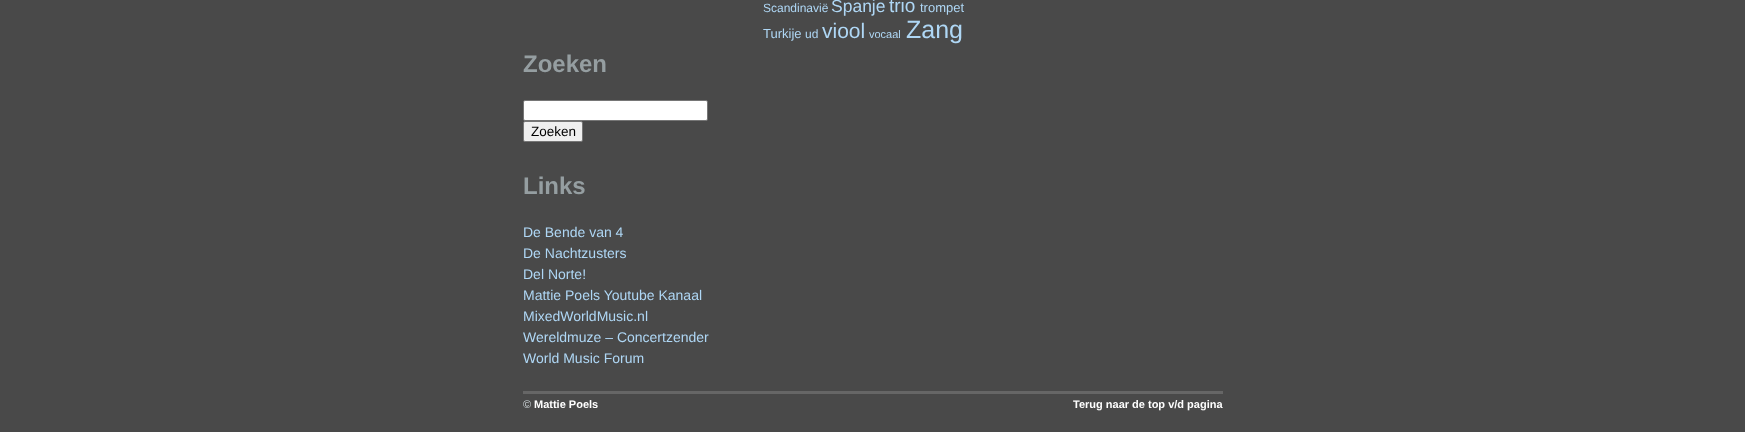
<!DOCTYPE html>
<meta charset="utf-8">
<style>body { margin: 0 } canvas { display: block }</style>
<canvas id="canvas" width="1745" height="432"></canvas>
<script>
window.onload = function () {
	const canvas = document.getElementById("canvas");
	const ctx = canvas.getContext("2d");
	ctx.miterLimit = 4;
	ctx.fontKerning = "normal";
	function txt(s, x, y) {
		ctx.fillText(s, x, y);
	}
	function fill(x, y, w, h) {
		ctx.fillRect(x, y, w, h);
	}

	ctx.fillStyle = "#494949";
	fill(0, 0, 1745, 432);
	ctx.fillStyle = "#FFFFFF";
	ctx.beginPath();
	ctx.roundRect(523.5, 100.5, 184, 20, 1.5);
	ctx.fill();
	ctx.strokeStyle = "#767676";
	ctx.stroke();
	ctx.fillStyle = "#EFEFEF";
	ctx.beginPath();
	ctx.roundRect(523.5, 121.5, 59, 20, 1.5);
	ctx.fill();
	ctx.stroke();
	ctx.fillStyle = "#666666";
	fill(523, 391, 700, 3);
	ctx.font = "12px Liberation Sans";
	ctx.fillStyle = "#AFD7F5";
	txt("Scandinavië", 763, 12);
	ctx.font = "17.5px Liberation Sans";
	txt("Spanje", 831, 12);
	ctx.font = "19px Liberation Sans";
	txt("trio", 889, 12);
	ctx.font = "13px Liberation Sans";
	txt("trompet", 920, 12);
	txt("Turkije", 763, 38);
	ctx.font = "12px Liberation Sans";
	txt("ud", 805, 38);
	ctx.font = "21px Liberation Sans";
	txt("viool", 822, 38);
	ctx.font = "11px Liberation Sans";
	txt("vocaal", 869, 38);
	ctx.font = "25px Liberation Sans";
	txt("Zang", 906, 38);
	ctx.font = "bold 24px Liberation Sans";
	ctx.fillStyle = "#959EA1";
	txt("Zoeken", 523, 72);
	ctx.font = "13.5px Liberation Sans";
	ctx.fillStyle = "#000000";
	txt("Zoeken", 531, 136);
	ctx.font = "bold 24px Liberation Sans";
	ctx.fillStyle = "#959EA1";
	txt("Links", 523, 194);
	ctx.font = "14px Liberation Sans";
	ctx.fillStyle = "#AFD7F5";
	txt("De Bende van 4", 523, 237);
	txt("De Nachtzusters", 523, 258);
	txt("Del Norte!", 523, 279);
	txt("Mattie Poels Youtube Kanaal", 523, 300);
	txt("MixedWorldMusic.nl", 523, 321);
	txt("Wereldmuze – Concertzender", 523, 342);
	txt("World Music Forum", 523, 363);
	ctx.save();
	ctx.beginPath();
	ctx.rect(523, 0, 700, 432);
	ctx.clip();
	ctx.font = "11px Liberation Sans";
	ctx.fillStyle = "#D1D9DC";
	txt("©", 523, 408);
	ctx.restore();
	ctx.font = "bold 11px Liberation Sans";
	ctx.fillStyle = "#FFFFFF";
	txt("Mattie Poels", 534, 408);
	txt("Terug naar de top v/d pagina", 1073, 408);
};
</script>
